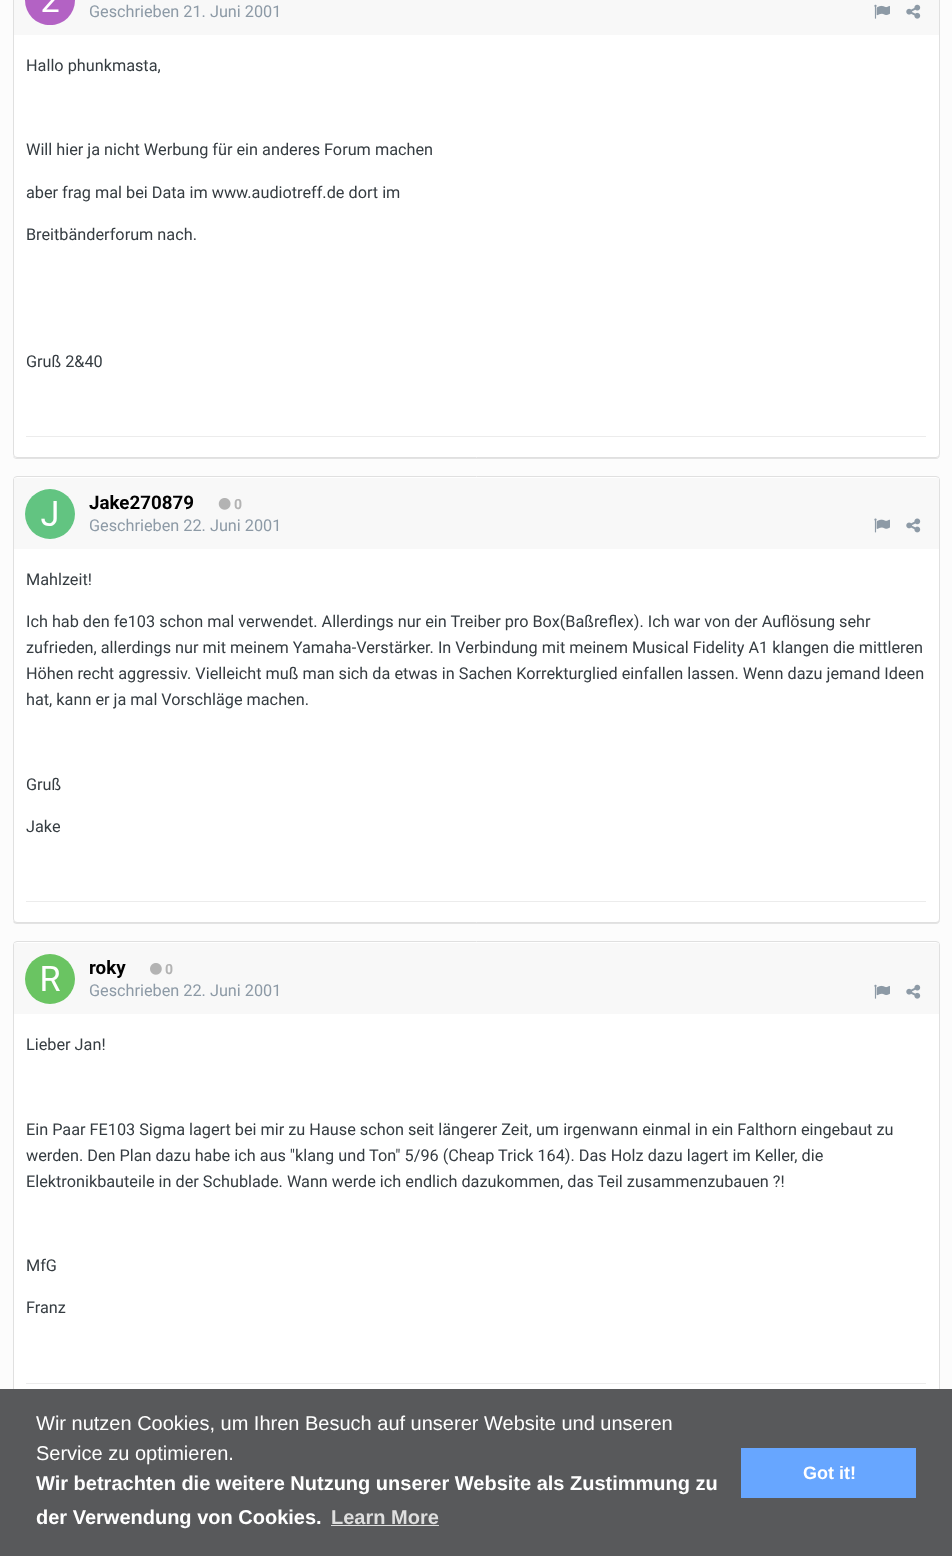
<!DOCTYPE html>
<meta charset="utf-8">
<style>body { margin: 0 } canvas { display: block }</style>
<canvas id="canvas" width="952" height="1556"></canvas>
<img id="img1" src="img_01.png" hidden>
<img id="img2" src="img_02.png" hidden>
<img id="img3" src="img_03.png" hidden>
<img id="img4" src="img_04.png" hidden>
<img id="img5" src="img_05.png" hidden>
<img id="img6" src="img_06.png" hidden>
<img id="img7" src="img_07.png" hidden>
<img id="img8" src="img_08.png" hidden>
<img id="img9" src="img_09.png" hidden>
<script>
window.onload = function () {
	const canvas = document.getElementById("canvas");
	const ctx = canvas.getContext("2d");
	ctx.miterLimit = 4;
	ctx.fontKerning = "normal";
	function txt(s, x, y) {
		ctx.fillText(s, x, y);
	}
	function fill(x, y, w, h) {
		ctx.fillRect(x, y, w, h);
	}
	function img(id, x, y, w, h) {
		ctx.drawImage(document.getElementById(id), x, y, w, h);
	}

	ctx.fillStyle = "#FCFCFC";
	fill(0, 0, 952, 1556);
	ctx.fillStyle = "#E3E3E3";
	ctx.beginPath();
	ctx.moveTo(13, 456);
	ctx.bezierCurveTo(13, 458, 15, 459, 17, 459);
	ctx.lineTo(936, 459);
	ctx.bezierCurveTo(938, 459, 940, 457, 940, 455);
	ctx.lineTo(940, 454);
	ctx.bezierCurveTo(940, 456, 938, 458, 936, 458);
	ctx.lineTo(16, 458);
	ctx.bezierCurveTo(15, 458, 14, 457, 13, 456);
	ctx.closePath();
	ctx.fill();
	ctx.fillStyle = "#FFFFFF";
	ctx.beginPath();
	ctx.roundRect(13.5, -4.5, 926, 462, 3.5);
	ctx.fill();
	ctx.strokeStyle = "#E0E0E0";
	ctx.stroke();
	ctx.fillStyle = "#F8F8F8";
	fill(14, 0, 925, 35);
	img("img1", 25, 0, 50, 25);
	img("img2", 874, 4, 16, 15);
	img("img3", 906, 4, 15, 15);
	ctx.fillStyle = "#ECECEC";
	fill(26, 436, 900, 1);
	ctx.fillStyle = "#E3E3E3";
	ctx.beginPath();
	ctx.moveTo(13, 921);
	ctx.bezierCurveTo(13, 923, 15, 924, 17, 924);
	ctx.lineTo(936, 924);
	ctx.bezierCurveTo(938, 924, 940, 922, 940, 920);
	ctx.lineTo(940, 919);
	ctx.bezierCurveTo(940, 921, 938, 922, 936, 922);
	ctx.lineTo(16, 922);
	ctx.bezierCurveTo(15, 922, 14, 922, 13, 921);
	ctx.closePath();
	ctx.fill();
	ctx.fillStyle = "#FFFFFF";
	ctx.beginPath();
	ctx.roundRect(13.5, 476.5, 926, 446, 3.5);
	ctx.fill();
	ctx.stroke();
	ctx.fillStyle = "#F8F8F8";
	fill(14, 478, 925, 71);
	ctx.fillStyle = "#FFFFFF";
	ctx.beginPath();
	ctx.arc(50, 514, 25, 0, Math.PI * 2);
	ctx.fill();
	img("img4", 25, 489, 50, 50);
	img("img5", 218, 498, 13, 12);
	img("img6", 874, 518, 16, 15);
	img("img7", 906, 518, 15, 15);
	ctx.fillStyle = "#ECECEC";
	fill(26, 901, 900, 1);
	ctx.fillStyle = "#FFFFFF";
	ctx.beginPath();
	ctx.roundRect(13.5, 941.5, 926, 462, 3.5);
	ctx.fill();
	ctx.stroke();
	ctx.fillStyle = "#F8F8F8";
	fill(14, 943, 925, 71);
	ctx.fillStyle = "#FFFFFF";
	ctx.beginPath();
	ctx.arc(50, 979, 25, 0, Math.PI * 2);
	ctx.fill();
	img("img8", 25, 954, 50, 50);
	img("img9", 150, 963, 12, 12);
	img("img2", 874, 984, 16, 15);
	img("img3", 906, 984, 15, 15);
	ctx.fillStyle = "#ECECEC";
	fill(26, 1383, 900, 1);
	ctx.fillStyle = "#58595B";
	fill(0, 1389, 952, 167);
	ctx.fillStyle = "#DEDEDE";
	fill(331, 1525, 108, 1);
	ctx.fillStyle = "#67A6FF";
	fill(741, 1448, 175, 50);
	ctx.font = "16.25px Roboto";
	ctx.fillStyle = "#8D9AA6";
	txt("Geschrieben 21. Juni 2001", 89, 17);
	ctx.fillStyle = "#353C41";
	txt("Hallo phunkmasta,", 26, 71);
	txt("Will hier ja nicht Werbung für ein anderes Forum machen", 26, 155);
	txt("aber frag mal bei Data im www.audiotreff.de dort im", 26, 198);
	txt("Breitbänderforum nach.", 26, 240);
	txt("Gruß 2&40", 26, 367);
	ctx.font = "bold 18.75px Roboto";
	ctx.fillStyle = "#000000";
	txt("Jake270879", 89, 509);
	ctx.font = "bold 14px Roboto";
	ctx.fillStyle = "#B3B3B3";
	txt("0", 234, 509);
	ctx.font = "16.25px Roboto";
	ctx.fillStyle = "#8D9AA6";
	txt("Geschrieben 22. Juni 2001", 89, 531);
	ctx.fillStyle = "#353C41";
	txt("Mahlzeit!", 26, 585);
	txt("Ich hab den fe103 schon mal verwendet. Allerdings nur ein Treiber pro Box(Baßreflex). Ich war von der Auflösung sehr", 26, 627);
	txt("zufrieden, allerdings nur mit meinem Yamaha-Verstärker. In Verbindung mit meinem Musical Fidelity A1 klangen die mittleren", 26, 653);
	txt("Höhen recht aggressiv. Vielleicht muß man sich da etwas in Sachen Korrekturglied einfallen lassen. Wenn dazu jemand Ideen", 26, 679);
	txt("hat, kann er ja mal Vorschläge machen.", 26, 705);
	txt("Gruß", 26, 790);
	txt("Jake", 26, 832);
	ctx.font = "bold 18.75px Roboto";
	ctx.fillStyle = "#000000";
	txt("roky", 89, 974);
	ctx.font = "bold 14px Roboto";
	ctx.fillStyle = "#B3B3B3";
	txt("0", 165, 974);
	ctx.font = "16.25px Roboto";
	ctx.fillStyle = "#8D9AA6";
	txt("Geschrieben 22. Juni 2001", 89, 996);
	ctx.fillStyle = "#353C41";
	txt("Lieber Jan!", 26, 1050);
	txt("Ein Paar FE103 Sigma lagert bei mir zu Hause schon seit längerer Zeit, um irgenwann einmal in ein Falthorn eingebaut zu", 26, 1135);
	txt("werden. Den Plan dazu habe ich aus \"klang und Ton\" 5/96 (Cheap Trick 164). Das Holz dazu lagert im Keller, die", 26, 1161);
	txt("Elektronikbauteile in der Schublade. Wann werde ich endlich dazukommen, das Teil zusammenzubauen ?!", 26, 1187);
	txt("MfG", 26, 1271);
	txt("Franz", 26, 1313);
	ctx.font = "20px Liberation Sans";
	ctx.fillStyle = "#FFFFFF";
	txt("Wir nutzen Cookies, um Ihren Besuch auf unserer Website und unseren", 36, 1430);
	txt("Service zu optimieren.", 36, 1460);
	ctx.font = "bold 20px Liberation Sans";
	txt("Wir betrachten die weitere Nutzung unserer Website als Zustimmung zu", 36, 1490);
	txt("der Verwendung von Cookies.", 36, 1524);
	ctx.fillStyle = "#DEDEDE";
	txt("Learn More", 331, 1524);
	ctx.font = "bold 18px Liberation Sans";
	ctx.fillStyle = "#FFFFFF";
	txt("Got it!", 803, 1479);
};
</script>
